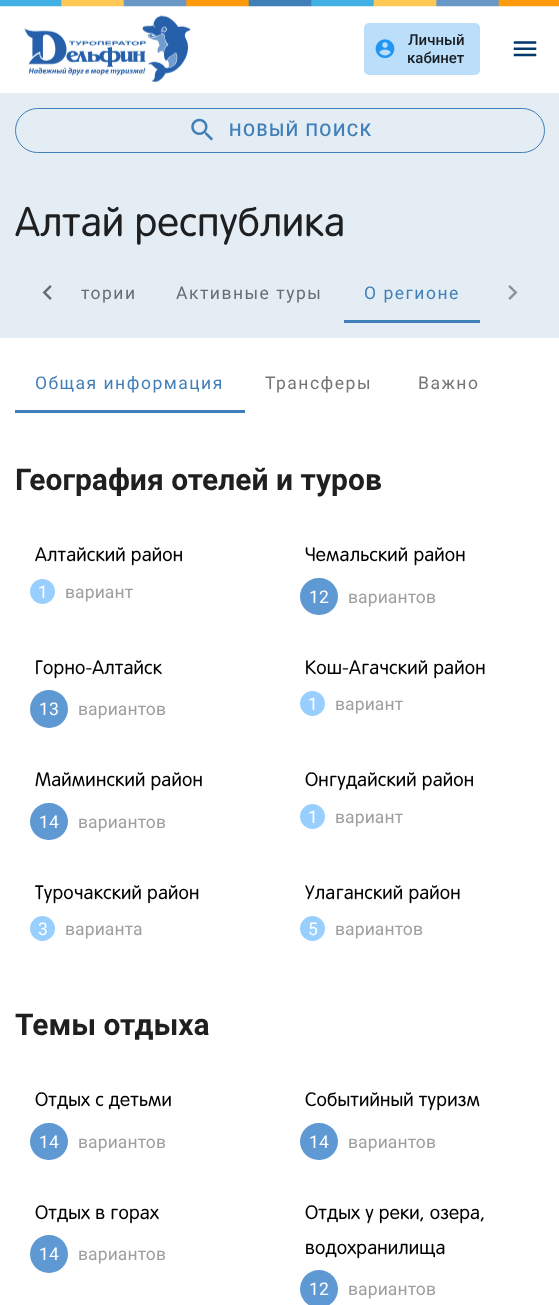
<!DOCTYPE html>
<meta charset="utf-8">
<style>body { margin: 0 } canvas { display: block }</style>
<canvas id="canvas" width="559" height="1305"></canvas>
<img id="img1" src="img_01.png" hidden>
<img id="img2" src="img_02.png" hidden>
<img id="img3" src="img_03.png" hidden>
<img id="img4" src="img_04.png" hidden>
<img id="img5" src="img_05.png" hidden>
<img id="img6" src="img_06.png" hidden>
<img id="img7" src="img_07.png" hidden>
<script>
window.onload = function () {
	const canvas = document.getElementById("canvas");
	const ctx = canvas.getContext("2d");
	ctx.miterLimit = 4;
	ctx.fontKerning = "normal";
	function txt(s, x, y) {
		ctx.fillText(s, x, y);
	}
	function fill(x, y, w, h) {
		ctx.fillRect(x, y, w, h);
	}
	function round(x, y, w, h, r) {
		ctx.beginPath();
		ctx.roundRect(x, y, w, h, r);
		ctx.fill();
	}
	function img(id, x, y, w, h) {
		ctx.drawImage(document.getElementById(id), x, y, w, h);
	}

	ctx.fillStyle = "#FFFFFF";
	fill(0, 0, 559, 1305);
	img("img1", 0, 0, 559, 7);
	img("img2", 24, 15, 167, 67);
	ctx.fillStyle = "#BBDEFB";
	round(364, 23, 116, 52, 5);
	img("img3", 375, 39, 20, 20);
	img("img4", 513, 41, 24, 16);
	ctx.fillStyle = "#E4EDF4";
	fill(0, 93, 559, 245);
	ctx.beginPath();
	ctx.roundRect(15.5, 108.5, 529, 44, 22);
	ctx.strokeStyle = "#417FB8";
	ctx.stroke();
	img("img5", 191, 118, 22, 23);
	img("img6", 42, 285, 10, 15);
	ctx.fillStyle = "#417FB8";
	fill(344, 320, 136, 3);
	img("img7", 508, 285, 10, 15);
	fill(15, 410, 230, 3);
	ctx.fillStyle = "#98CFFF";
	ctx.beginPath();
	ctx.arc(42.5, 591.5, 12.5, 0, Math.PI * 2);
	ctx.fill();
	ctx.fillStyle = "#5F99D4";
	round(300, 578, 38, 37, 18.5);
	ctx.beginPath();
	ctx.arc(49, 709, 19, 0, Math.PI * 2);
	ctx.fill();
	ctx.fillStyle = "#98CFFF";
	ctx.beginPath();
	ctx.arc(312.5, 703.5, 12.5, 0, Math.PI * 2);
	ctx.fill();
	ctx.fillStyle = "#5F99D4";
	round(30, 803, 38, 37, 18.5);
	ctx.fillStyle = "#98CFFF";
	ctx.beginPath();
	ctx.arc(312.5, 816.5, 12.5, 0, Math.PI * 2);
	ctx.fill();
	ctx.beginPath();
	ctx.arc(42.5, 928.5, 12.5, 0, Math.PI * 2);
	ctx.fill();
	ctx.beginPath();
	ctx.arc(312.5, 928.5, 12.5, 0, Math.PI * 2);
	ctx.fill();
	ctx.fillStyle = "#5F99D4";
	round(30, 1123, 38, 37, 18.5);
	round(300, 1123, 38, 37, 18.5);
	ctx.beginPath();
	ctx.arc(49, 1254, 19, 0, Math.PI * 2);
	ctx.fill();
	ctx.beginPath();
	ctx.arc(319, 1289, 19, 0, Math.PI * 2);
	ctx.fill();
	ctx.font = "500 15px Roboto";
	ctx.fillStyle = "#181D21";
	txt("Личный", 408, 45);
	txt("кабинет", 407, 63);
	ctx.letterSpacing = "1.5px";
	ctx.font = "500 17.5px Roboto";
	ctx.fillStyle = "#417FB8";
	txt("НОВЫЙ ПОИСК", 229, 136);
	ctx.letterSpacing = "0.25px";
	ctx.font = "42.5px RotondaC";
	ctx.fillStyle = "#1E1F20";
	txt("Алтай республика", 15, 236);
	ctx.letterSpacing = "1.5px";
	ctx.font = "17.5px Roboto";
	ctx.fillStyle = "#696D70";
	txt("тории", 81, 299);
	txt("Активные туры", 176, 299);
	ctx.fillStyle = "#417FB8";
	txt("О регионе", 364, 299);
	txt("Общая информация", 35, 389);
	ctx.fillStyle = "#757575";
	txt("Трансферы", 265, 389);
	txt("Важно", 418, 389);
	ctx.letterSpacing = "0px";
	ctx.font = "bold 30px Roboto";
	ctx.fillStyle = "#1E1F20";
	txt("География отелей и туров", 15, 490);
	ctx.letterSpacing = "0.2px";
	ctx.font = "20px RotondaC";
	ctx.fillStyle = "#000000";
	txt("Алтайский район", 35, 561);
	ctx.letterSpacing = "0.1px";
	ctx.font = "17.5px Roboto";
	ctx.fillStyle = "#FFFFFF";
	txt("1", 38, 598);
	ctx.fillStyle = "#9E9E9E";
	txt("вариант", 65, 598);
	ctx.letterSpacing = "0.2px";
	ctx.font = "20px RotondaC";
	ctx.fillStyle = "#000000";
	txt("Чемальский район", 305, 561);
	ctx.letterSpacing = "0.1px";
	ctx.font = "17.5px Roboto";
	ctx.fillStyle = "#FFFFFF";
	txt("12", 309, 603);
	ctx.fillStyle = "#9E9E9E";
	txt("вариантов", 348, 603);
	ctx.letterSpacing = "0.2px";
	ctx.font = "20px RotondaC";
	ctx.fillStyle = "#000000";
	txt("Горно-Алтайск", 35, 674);
	ctx.letterSpacing = "0.1px";
	ctx.font = "17.5px Roboto";
	ctx.fillStyle = "#FFFFFF";
	txt("13", 39, 715);
	ctx.fillStyle = "#9E9E9E";
	txt("вариантов", 78, 715);
	ctx.letterSpacing = "0.2px";
	ctx.font = "20px RotondaC";
	ctx.fillStyle = "#000000";
	txt("Кош-Агачский район", 305, 674);
	ctx.letterSpacing = "0.1px";
	ctx.font = "17.5px Roboto";
	ctx.fillStyle = "#FFFFFF";
	txt("1", 308, 710);
	ctx.fillStyle = "#9E9E9E";
	txt("вариант", 335, 710);
	ctx.letterSpacing = "0.2px";
	ctx.font = "20px RotondaC";
	ctx.fillStyle = "#000000";
	txt("Майминский район", 35, 786);
	ctx.letterSpacing = "0.1px";
	ctx.font = "17.5px Roboto";
	ctx.fillStyle = "#FFFFFF";
	txt("14", 39, 828);
	ctx.fillStyle = "#9E9E9E";
	txt("вариантов", 78, 828);
	ctx.letterSpacing = "0.2px";
	ctx.font = "20px RotondaC";
	ctx.fillStyle = "#000000";
	txt("Онгудайский район", 305, 786);
	ctx.letterSpacing = "0.1px";
	ctx.font = "17.5px Roboto";
	ctx.fillStyle = "#FFFFFF";
	txt("1", 308, 823);
	ctx.fillStyle = "#9E9E9E";
	txt("вариант", 335, 823);
	ctx.letterSpacing = "0.2px";
	ctx.font = "20px RotondaC";
	ctx.fillStyle = "#000000";
	txt("Турочакский район", 35, 899);
	ctx.letterSpacing = "0.1px";
	ctx.font = "17.5px Roboto";
	ctx.fillStyle = "#FFFFFF";
	txt("3", 38, 935);
	ctx.fillStyle = "#9E9E9E";
	txt("варианта", 65, 935);
	ctx.letterSpacing = "0.2px";
	ctx.font = "20px RotondaC";
	ctx.fillStyle = "#000000";
	txt("Улаганский район", 305, 899);
	ctx.letterSpacing = "0.1px";
	ctx.font = "17.5px Roboto";
	ctx.fillStyle = "#FFFFFF";
	txt("5", 308, 935);
	ctx.fillStyle = "#9E9E9E";
	txt("вариантов", 335, 935);
	ctx.letterSpacing = "0px";
	ctx.font = "bold 30px Roboto";
	ctx.fillStyle = "#1E1F20";
	txt("Темы отдыха", 15, 1035);
	ctx.letterSpacing = "0.2px";
	ctx.font = "20px RotondaC";
	ctx.fillStyle = "#000000";
	txt("Отдых с детьми", 35, 1106);
	ctx.letterSpacing = "0.1px";
	ctx.font = "17.5px Roboto";
	ctx.fillStyle = "#FFFFFF";
	txt("14", 39, 1148);
	ctx.fillStyle = "#9E9E9E";
	txt("вариантов", 78, 1148);
	ctx.letterSpacing = "0.2px";
	ctx.font = "20px RotondaC";
	ctx.fillStyle = "#000000";
	txt("Событийный туризм", 305, 1106);
	ctx.letterSpacing = "0.1px";
	ctx.font = "17.5px Roboto";
	ctx.fillStyle = "#FFFFFF";
	txt("14", 309, 1148);
	ctx.fillStyle = "#9E9E9E";
	txt("вариантов", 348, 1148);
	ctx.letterSpacing = "0.2px";
	ctx.font = "20px RotondaC";
	ctx.fillStyle = "#000000";
	txt("Отдых в горах", 35, 1219);
	ctx.letterSpacing = "0.1px";
	ctx.font = "17.5px Roboto";
	ctx.fillStyle = "#FFFFFF";
	txt("14", 39, 1260);
	ctx.fillStyle = "#9E9E9E";
	txt("вариантов", 78, 1260);
	ctx.letterSpacing = "0.2px";
	ctx.font = "20px RotondaC";
	ctx.fillStyle = "#000000";
	txt("Отдых у реки, озера,", 305, 1219);
	txt("водохранилища", 305, 1254);
	ctx.letterSpacing = "0.1px";
	ctx.font = "17.5px Roboto";
	ctx.fillStyle = "#FFFFFF";
	txt("12", 309, 1295);
	ctx.fillStyle = "#9E9E9E";
	txt("вариантов", 348, 1295);
};
</script>
